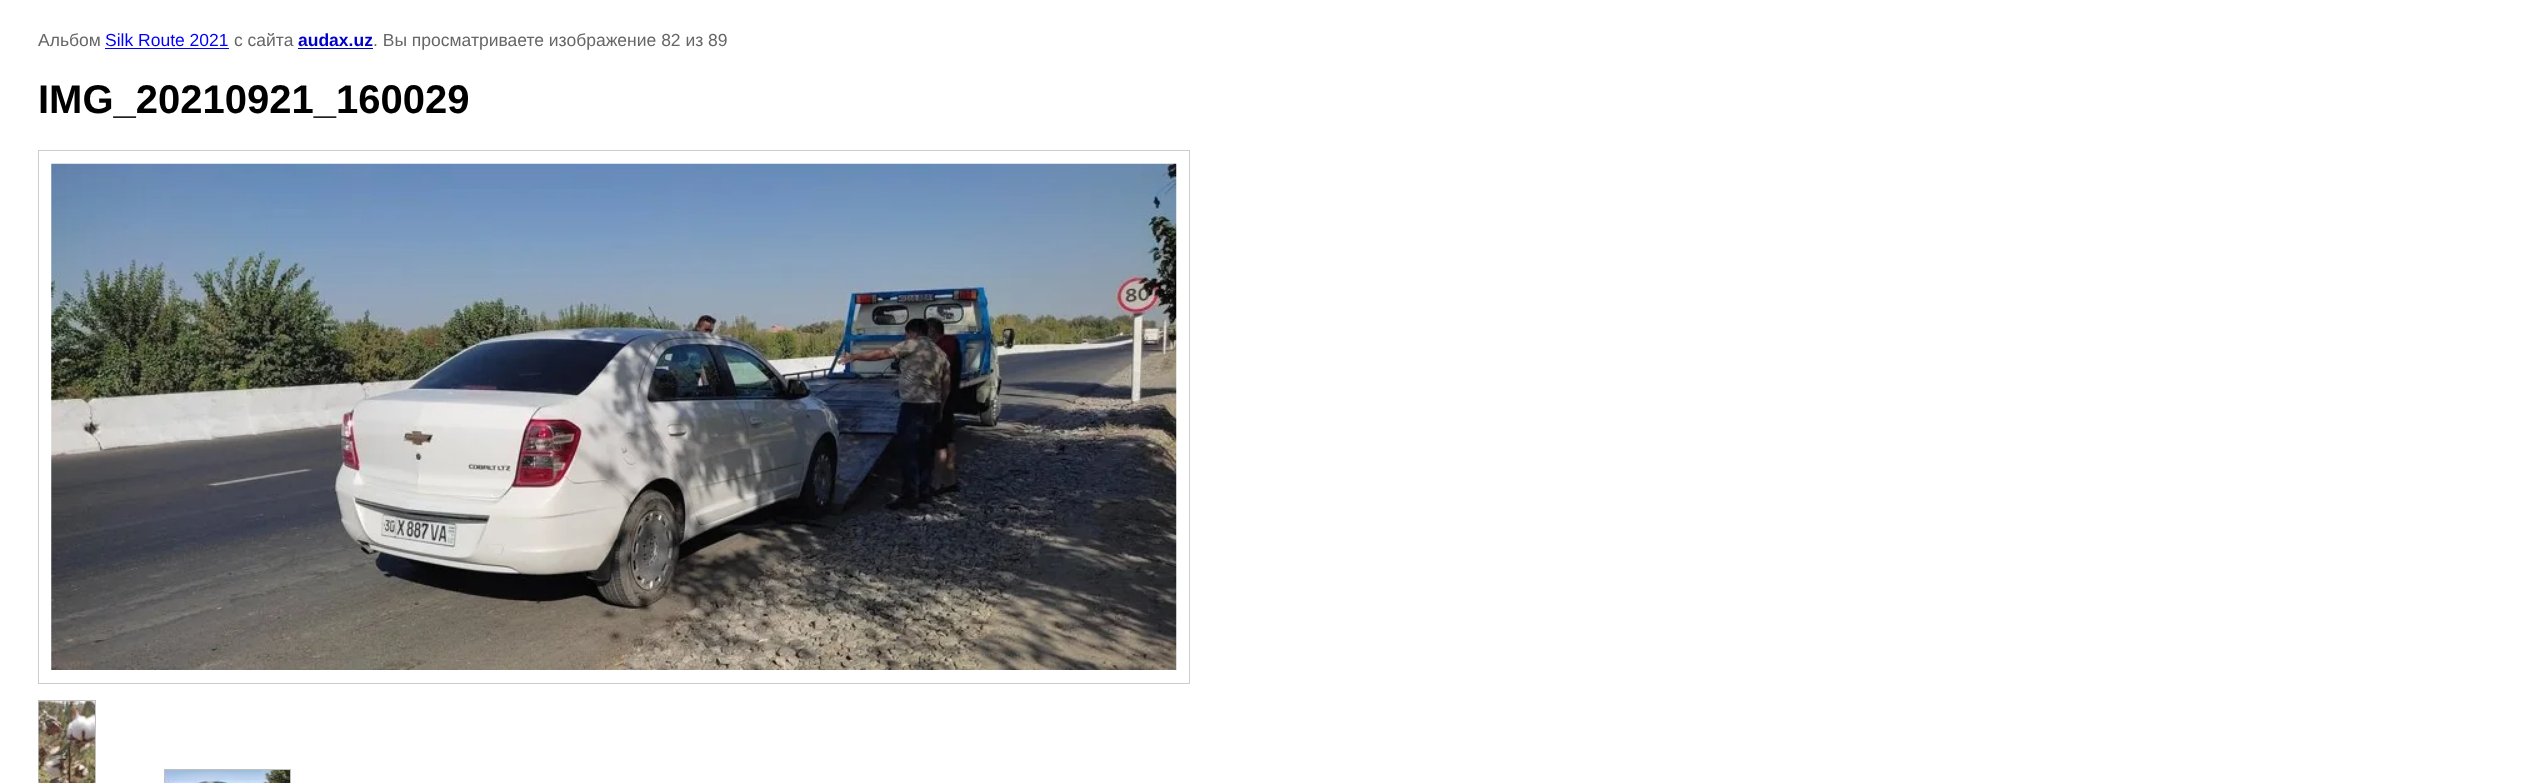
<!DOCTYPE html>
<meta charset="utf-8">
<style>body { margin: 0 } canvas { display: block }</style>
<canvas id="canvas" width="2527" height="783"></canvas>
<img id="img1" src="img_01.png" hidden>
<img id="img2" src="img_02.png" hidden>
<img id="img3" src="img_03.png" hidden>
<script>
window.onload = function () {
	const canvas = document.getElementById("canvas");
	const ctx = canvas.getContext("2d");
	ctx.miterLimit = 4;
	ctx.fontKerning = "normal";
	function txt(s, x, y) {
		ctx.fillText(s, x, y);
	}
	function fill(x, y, w, h) {
		ctx.fillRect(x, y, w, h);
	}
	function img(id, x, y, w, h) {
		ctx.drawImage(document.getElementById(id), x, y, w, h);
	}

	ctx.fillStyle = "#FFFFFF";
	fill(0, 0, 2527, 783);
	ctx.fillStyle = "#0000FF";
	fill(105, 48, 124, 1);
	ctx.fillStyle = "#0000CC";
	fill(298, 48, 75, 1);
	ctx.strokeStyle = "#CCCCCC";
	ctx.strokeRect(38.5, 150.5, 1151, 533);
	img("img1", 51, 163, 1126, 507);
	ctx.strokeStyle = "#C0C0C0";
	ctx.strokeRect(38.5, 700.5, 57, 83);
	img("img2", 38, 701, 57, 82);
	ctx.strokeRect(164.5, 769.5, 126, 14);
	img("img3", 165, 770, 125, 13);
	ctx.font = "17.5px Liberation Sans";
	ctx.fillStyle = "#666666";
	txt("Альбом", 38, 46);
	ctx.fillStyle = "#0000FF";
	txt("Silk Route 2021", 105, 46);
	ctx.fillStyle = "#666666";
	txt("с сайта", 234, 46);
	ctx.font = "bold 17.5px Liberation Sans";
	ctx.fillStyle = "#0000CC";
	txt("audax.uz", 298, 46);
	ctx.font = "17.5px Liberation Sans";
	ctx.fillStyle = "#666666";
	txt(". Вы просматриваете изображение 82 из 89", 373, 46);
	ctx.font = "bold 40px Liberation Sans";
	ctx.fillStyle = "#000000";
	txt("IMG_20210921_160029", 38, 113);
};
</script>
